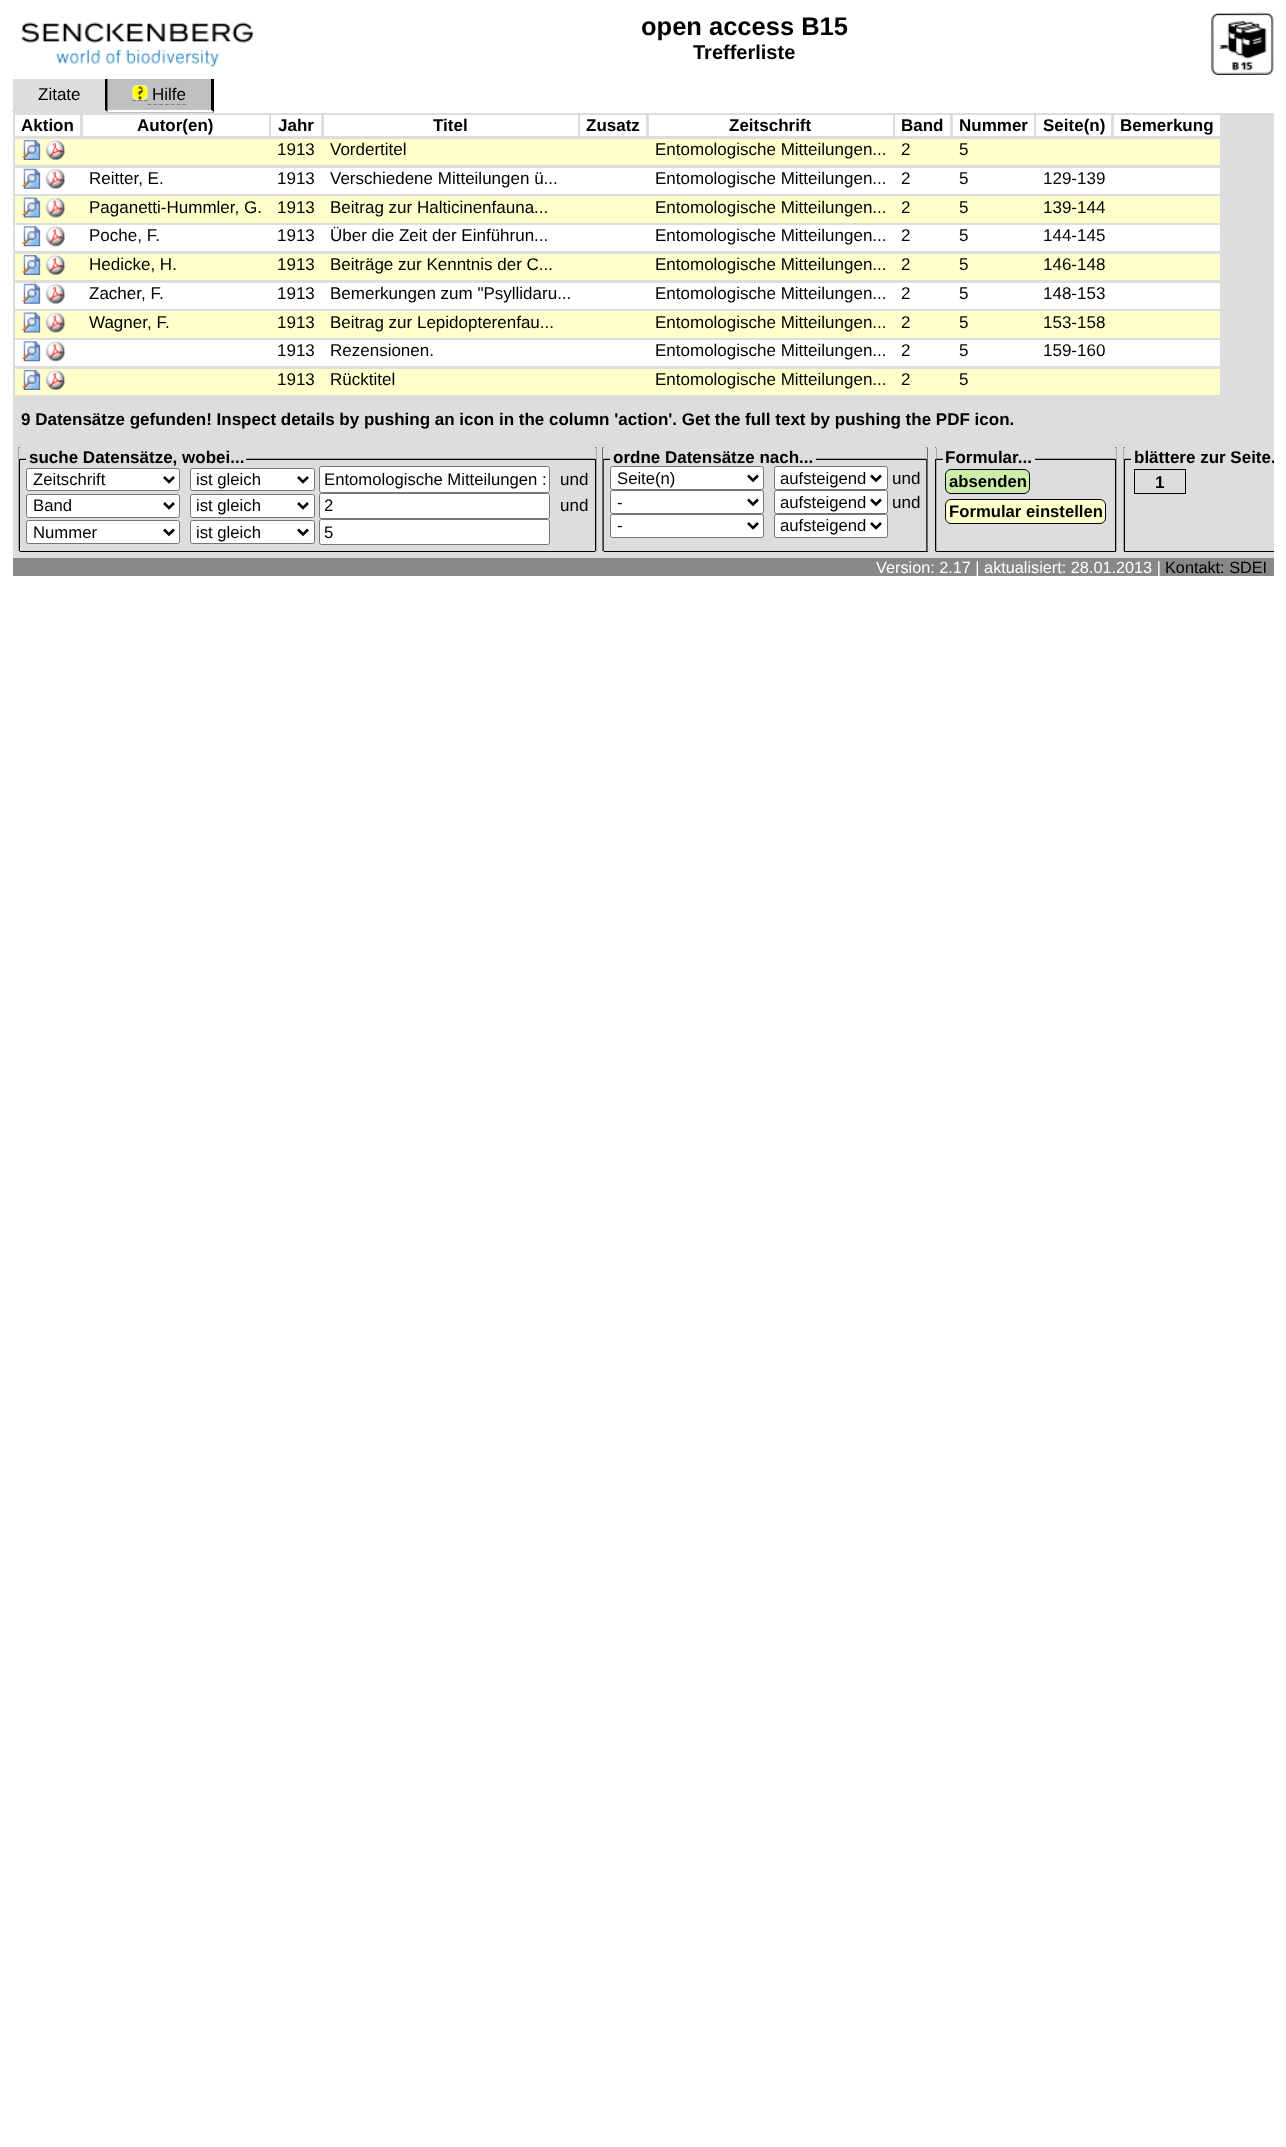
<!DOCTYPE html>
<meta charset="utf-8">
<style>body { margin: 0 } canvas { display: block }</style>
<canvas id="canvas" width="1286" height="2147"></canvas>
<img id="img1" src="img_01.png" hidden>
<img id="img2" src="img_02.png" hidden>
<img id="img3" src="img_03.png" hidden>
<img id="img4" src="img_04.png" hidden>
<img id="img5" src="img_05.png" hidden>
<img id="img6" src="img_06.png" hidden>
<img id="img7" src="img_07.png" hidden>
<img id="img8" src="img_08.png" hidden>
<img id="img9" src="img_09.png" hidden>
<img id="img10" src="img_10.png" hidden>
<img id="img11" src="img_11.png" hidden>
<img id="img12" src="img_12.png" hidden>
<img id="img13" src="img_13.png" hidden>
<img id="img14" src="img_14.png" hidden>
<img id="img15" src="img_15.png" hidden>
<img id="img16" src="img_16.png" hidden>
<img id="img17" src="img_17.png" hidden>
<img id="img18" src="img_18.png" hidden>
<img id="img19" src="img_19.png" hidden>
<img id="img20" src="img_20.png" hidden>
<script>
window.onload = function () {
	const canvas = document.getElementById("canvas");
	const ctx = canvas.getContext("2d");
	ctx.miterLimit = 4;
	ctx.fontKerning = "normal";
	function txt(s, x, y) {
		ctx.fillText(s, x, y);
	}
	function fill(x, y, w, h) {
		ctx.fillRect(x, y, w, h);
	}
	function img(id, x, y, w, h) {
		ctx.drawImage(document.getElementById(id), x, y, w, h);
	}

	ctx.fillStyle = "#FFFFFF";
	fill(0, 0, 1286, 2147);
	img("img1", 21, 22, 233, 45);
	img("img2", 1211, 12, 63, 63);
	ctx.fillStyle = "#DDDDDD";
	fill(13, 79, 95, 34);
	ctx.fillStyle = "#000000";
	ctx.beginPath();
	ctx.moveTo(107.5, 79);
	ctx.lineTo(107.5, 112.5);
	ctx.lineTo(105, 110);
	ctx.lineTo(105, 79);
	ctx.closePath();
	ctx.fill();
	ctx.fillStyle = "#DDDDDD";
	ctx.beginPath();
	ctx.moveTo(108, 112);
	ctx.lineTo(12, 112);
	ctx.lineTo(12, 110);
	ctx.lineTo(105, 110);
	ctx.closePath();
	ctx.fill();
	ctx.fillStyle = "#C0C0C0";
	fill(108, 79, 106, 34);
	ctx.fillStyle = "#000000";
	ctx.beginPath();
	ctx.moveTo(214, 79);
	ctx.lineTo(214, 112.5);
	ctx.lineTo(211, 110);
	ctx.lineTo(211, 79);
	ctx.closePath();
	ctx.fill();
	ctx.fillStyle = "#FFFFFF";
	ctx.beginPath();
	ctx.moveTo(214, 112);
	ctx.lineTo(108, 112);
	ctx.lineTo(108, 110);
	ctx.lineTo(211, 110);
	ctx.closePath();
	ctx.fill();
	ctx.beginPath();
	ctx.moveTo(132.5, 100.5);
	ctx.lineTo(136, 100.5);
	ctx.moveTo(138, 100.5);
	ctx.lineTo(142, 100.5);
	ctx.moveTo(144, 100.5);
	ctx.lineTo(147.5, 100.5);
	ctx.strokeStyle = "#808080";
	ctx.lineWidth = 1.2;
	ctx.stroke();
	img("img3", 132, 85, 16, 15);
	ctx.beginPath();
	ctx.moveTo(147.5, 104.5);
	ctx.lineTo(186, 104.5);
	ctx.setLineDash([3.75, 2.09]);
	ctx.stroke();
	ctx.fillStyle = "#DDDDDD";
	fill(13, 113, 1261, 445);
	ctx.fillStyle = "#FFFFFF";
	fill(15, 115, 65, 21);
	fill(83, 115, 186, 21);
	fill(271, 115, 50, 21);
	fill(324, 115, 254, 21);
	fill(580, 115, 66, 21);
	fill(649, 115, 244, 21);
	fill(895, 115, 55, 21);
	fill(953, 115, 81, 21);
	fill(1036, 115, 75, 21);
	fill(1114, 115, 106, 21);
	ctx.fillStyle = "#FFFFCC";
	fill(15, 139, 1205, 26);
	img("img4", 22, 140, 19, 20);
	img("img5", 46, 140, 19, 20);
	ctx.fillStyle = "#FFFFFF";
	fill(15, 168, 1205, 26);
	img("img6", 22, 168, 19, 21);
	img("img7", 46, 168, 19, 21);
	ctx.fillStyle = "#FFFFCC";
	fill(15, 196, 1205, 27);
	img("img8", 22, 197, 19, 21);
	img("img9", 46, 197, 19, 21);
	ctx.fillStyle = "#FFFFFF";
	fill(15, 225, 1205, 26);
	img("img10", 22, 226, 19, 21);
	img("img11", 46, 226, 19, 21);
	ctx.fillStyle = "#FFFFCC";
	fill(15, 254, 1205, 26);
	img("img4", 22, 255, 19, 20);
	img("img5", 46, 255, 19, 20);
	ctx.fillStyle = "#FFFFFF";
	fill(15, 283, 1205, 26);
	img("img12", 22, 283, 19, 21);
	img("img7", 46, 283, 19, 21);
	ctx.fillStyle = "#FFFFCC";
	fill(15, 311, 1205, 27);
	img("img8", 22, 312, 19, 21);
	img("img9", 46, 312, 19, 21);
	ctx.fillStyle = "#FFFFFF";
	fill(15, 340, 1205, 26);
	img("img10", 22, 341, 19, 21);
	img("img11", 46, 341, 19, 21);
	ctx.fillStyle = "#FFFFCC";
	fill(15, 369, 1205, 26);
	img("img4", 22, 370, 19, 20);
	img("img5", 46, 370, 19, 20);
	img("img13", 18, 447, 2, 105);
	ctx.fillStyle = "#DDDDDD";
	fill(19, 448, 1, 11);
	img("img14", 20, 458, 575, 2);
	ctx.fillStyle = "#000000";
	fill(20, 551, 575, 1);
	ctx.fillStyle = "#DDDDDD";
	fill(26, 458, 220, 2);
	ctx.fillStyle = "#FFFFFF";
	ctx.beginPath();
	ctx.roundRect(26.5, 468.5, 153, 22, 2);
	ctx.fill();
	ctx.strokeStyle = "#767676";
	ctx.lineWidth = 1;
	ctx.setLineDash([]);
	ctx.stroke();
	ctx.beginPath();
	ctx.moveTo(164, 477);
	ctx.lineTo(169, 482);
	ctx.lineTo(174, 477);
	ctx.strokeStyle = "#000000";
	ctx.lineWidth = 2.5;
	ctx.stroke();
	ctx.beginPath();
	ctx.roundRect(190.5, 468.5, 124, 22, 2);
	ctx.fill();
	ctx.strokeStyle = "#767676";
	ctx.lineWidth = 1;
	ctx.stroke();
	ctx.beginPath();
	ctx.moveTo(298, 477);
	ctx.lineTo(303, 482);
	ctx.lineTo(308, 477);
	ctx.strokeStyle = "#000000";
	ctx.lineWidth = 2.5;
	ctx.stroke();
	ctx.beginPath();
	ctx.roundRect(319.5, 466.5, 230, 26, 2);
	ctx.fill();
	ctx.strokeStyle = "#767676";
	ctx.lineWidth = 1;
	ctx.stroke();
	ctx.beginPath();
	ctx.roundRect(26.5, 494.5, 153, 23, 2);
	ctx.fill();
	ctx.stroke();
	ctx.beginPath();
	ctx.moveTo(164, 503);
	ctx.lineTo(169, 508);
	ctx.lineTo(174, 503);
	ctx.strokeStyle = "#000000";
	ctx.lineWidth = 2.5;
	ctx.stroke();
	ctx.beginPath();
	ctx.roundRect(190.5, 494.5, 124, 23, 2);
	ctx.fill();
	ctx.strokeStyle = "#767676";
	ctx.lineWidth = 1;
	ctx.stroke();
	ctx.beginPath();
	ctx.moveTo(298, 503);
	ctx.lineTo(303, 508);
	ctx.lineTo(308, 503);
	ctx.strokeStyle = "#000000";
	ctx.lineWidth = 2.5;
	ctx.stroke();
	ctx.beginPath();
	ctx.roundRect(319.5, 493.5, 230, 25, 2);
	ctx.fill();
	ctx.strokeStyle = "#767676";
	ctx.lineWidth = 1;
	ctx.stroke();
	ctx.beginPath();
	ctx.roundRect(26.5, 520.5, 153, 23, 2);
	ctx.fill();
	ctx.stroke();
	ctx.beginPath();
	ctx.moveTo(164, 529.5);
	ctx.lineTo(169, 534.5);
	ctx.lineTo(174, 529.5);
	ctx.strokeStyle = "#000000";
	ctx.lineWidth = 2.5;
	ctx.stroke();
	ctx.beginPath();
	ctx.roundRect(190.5, 520.5, 124, 23, 2);
	ctx.fill();
	ctx.strokeStyle = "#767676";
	ctx.lineWidth = 1;
	ctx.stroke();
	ctx.beginPath();
	ctx.moveTo(298, 529.5);
	ctx.lineTo(303, 534.5);
	ctx.lineTo(308, 529.5);
	ctx.strokeStyle = "#000000";
	ctx.lineWidth = 2.5;
	ctx.stroke();
	ctx.beginPath();
	ctx.roundRect(319.5, 519.5, 230, 25, 2);
	ctx.fill();
	ctx.strokeStyle = "#767676";
	ctx.lineWidth = 1;
	ctx.stroke();
	img("img15", 595, 447, 2, 105);
	ctx.fillStyle = "#DDDDDD";
	fill(595, 448, 1, 11);
	img("img16", 602, 447, 2, 105);
	fill(603, 448, 1, 11);
	img("img17", 603, 458, 324, 2);
	ctx.fillStyle = "#000000";
	fill(604, 551, 324, 1);
	ctx.fillStyle = "#DDDDDD";
	fill(610, 458, 206, 2);
	ctx.fillStyle = "#FFFFFF";
	ctx.beginPath();
	ctx.roundRect(610.5, 466.5, 153, 23, 2);
	ctx.fill();
	ctx.stroke();
	ctx.beginPath();
	ctx.moveTo(748, 475.5);
	ctx.lineTo(753, 480.5);
	ctx.lineTo(758, 475.5);
	ctx.strokeStyle = "#000000";
	ctx.lineWidth = 2.5;
	ctx.stroke();
	ctx.beginPath();
	ctx.roundRect(774.5, 466.5, 113, 23, 2);
	ctx.fill();
	ctx.strokeStyle = "#767676";
	ctx.lineWidth = 1;
	ctx.stroke();
	ctx.beginPath();
	ctx.moveTo(871, 475.5);
	ctx.lineTo(876, 480.5);
	ctx.lineTo(881, 475.5);
	ctx.strokeStyle = "#000000";
	ctx.lineWidth = 2.5;
	ctx.stroke();
	ctx.beginPath();
	ctx.roundRect(610.5, 490.5, 153, 23, 2);
	ctx.fill();
	ctx.strokeStyle = "#767676";
	ctx.lineWidth = 1;
	ctx.stroke();
	ctx.beginPath();
	ctx.moveTo(748, 499.5);
	ctx.lineTo(753, 504.5);
	ctx.lineTo(758, 499.5);
	ctx.strokeStyle = "#000000";
	ctx.lineWidth = 2.5;
	ctx.stroke();
	ctx.beginPath();
	ctx.roundRect(774.5, 490.5, 113, 23, 2);
	ctx.fill();
	ctx.strokeStyle = "#767676";
	ctx.lineWidth = 1;
	ctx.stroke();
	ctx.beginPath();
	ctx.moveTo(871, 499.5);
	ctx.lineTo(876, 504.5);
	ctx.lineTo(881, 499.5);
	ctx.strokeStyle = "#000000";
	ctx.lineWidth = 2.5;
	ctx.stroke();
	ctx.beginPath();
	ctx.roundRect(610.5, 514.5, 153, 23, 2);
	ctx.fill();
	ctx.strokeStyle = "#767676";
	ctx.lineWidth = 1;
	ctx.stroke();
	ctx.beginPath();
	ctx.moveTo(748, 523);
	ctx.lineTo(753, 528);
	ctx.lineTo(758, 523);
	ctx.strokeStyle = "#000000";
	ctx.lineWidth = 2.5;
	ctx.stroke();
	ctx.beginPath();
	ctx.roundRect(774.5, 514.5, 113, 23, 2);
	ctx.fill();
	ctx.strokeStyle = "#767676";
	ctx.lineWidth = 1;
	ctx.stroke();
	ctx.beginPath();
	ctx.moveTo(871, 523);
	ctx.lineTo(876, 528);
	ctx.lineTo(881, 523);
	ctx.strokeStyle = "#000000";
	ctx.lineWidth = 2.5;
	ctx.stroke();
	img("img18", 926, 447, 2, 104);
	ctx.fillStyle = "#DDDDDD";
	fill(926, 448, 1, 11);
	img("img15", 935, 447, 2, 105);
	fill(935, 448, 1, 11);
	img("img19", 936, 458, 179, 2);
	img("img15", 1115, 447, 2, 105);
	ctx.fillStyle = "#000000";
	fill(936, 551, 180, 1);
	ctx.fillStyle = "#DDDDDD";
	fill(943, 458, 92, 2);
	ctx.fillStyle = "#CCEEAA";
	ctx.beginPath();
	ctx.roundRect(945.5, 469.5, 84, 24, 5.5);
	ctx.fill();
	ctx.lineWidth = 1;
	ctx.stroke();
	ctx.fillStyle = "#FFFFCC";
	ctx.beginPath();
	ctx.roundRect(945.5, 499.5, 160, 24, 5.5);
	ctx.fill();
	ctx.stroke();
	ctx.fillStyle = "#DDDDDD";
	fill(1115, 448, 1, 11);
	img("img13", 1123, 447, 2, 105);
	fill(1124, 448, 1, 11);
	img("img20", 1125, 458, 6, 2);
	ctx.fillStyle = "#000000";
	fill(1124, 551, 150, 1);
	ctx.strokeRect(1134.5, 469.5, 51, 24);
	ctx.fillStyle = "#888888";
	fill(13, 558, 1261, 18);
	ctx.font = "bold 25.5px Liberation Sans";
	ctx.fillStyle = "#000000";
	txt("open access B15", 641, 35);
	ctx.font = "bold 20px Liberation Sans";
	txt("Trefferliste", 693, 59);
	ctx.font = "17px Liberation Sans";
	txt("Zitate", 38, 100);
	txt("Hilfe", 152, 100);
	ctx.font = "bold 17px Liberation Sans";
	txt("Aktion", 21, 131);
	txt("Autor(en)", 137, 131);
	txt("Jahr", 278, 131);
	txt("Titel", 433, 131);
	txt("Zusatz", 586, 131);
	txt("Zeitschrift", 729, 131);
	txt("Band", 901, 131);
	txt("Nummer", 959, 131);
	txt("Seite(n)", 1043, 131);
	txt("Bemerkung", 1120, 131);
	ctx.font = "17px Liberation Sans";
	txt("1913", 277, 155);
	txt("Vordertitel", 330, 155);
	txt("Entomologische Mitteilungen...", 655, 155);
	txt("2", 901, 155);
	txt("5", 959, 155);
	txt("Reitter, E.", 89, 184);
	txt("1913", 277, 184);
	txt("Verschiedene Mitteilungen ü...", 330, 184);
	txt("Entomologische Mitteilungen...", 655, 184);
	txt("2", 901, 184);
	txt("5", 959, 184);
	txt("129-139", 1043, 184);
	txt("Paganetti-Hummler, G.", 89, 213);
	txt("1913", 277, 213);
	txt("Beitrag zur Halticinenfauna...", 330, 213);
	txt("Entomologische Mitteilungen...", 655, 213);
	txt("2", 901, 213);
	txt("5", 959, 213);
	txt("139-144", 1043, 213);
	txt("Poche, F.", 89, 241);
	txt("1913", 277, 241);
	txt("Über die Zeit der Einführun...", 330, 241);
	txt("Entomologische Mitteilungen...", 655, 241);
	txt("2", 901, 241);
	txt("5", 959, 241);
	txt("144-145", 1043, 241);
	txt("Hedicke, H.", 89, 270);
	txt("1913", 277, 270);
	txt("Beiträge zur Kenntnis der C...", 330, 270);
	txt("Entomologische Mitteilungen...", 655, 270);
	txt("2", 901, 270);
	txt("5", 959, 270);
	txt("146-148", 1043, 270);
	txt("Zacher, F.", 89, 299);
	txt("1913", 277, 299);
	txt("Bemerkungen zum \"Psyllidaru...", 330, 299);
	txt("Entomologische Mitteilungen...", 655, 299);
	txt("2", 901, 299);
	txt("5", 959, 299);
	txt("148-153", 1043, 299);
	txt("Wagner, F.", 89, 328);
	txt("1913", 277, 328);
	txt("Beitrag zur Lepidopterenfau...", 330, 328);
	txt("Entomologische Mitteilungen...", 655, 328);
	txt("2", 901, 328);
	txt("5", 959, 328);
	txt("153-158", 1043, 328);
	txt("1913", 277, 356);
	txt("Rezensionen.", 330, 356);
	txt("Entomologische Mitteilungen...", 655, 356);
	txt("2", 901, 356);
	txt("5", 959, 356);
	txt("159-160", 1043, 356);
	txt("1913", 277, 385);
	txt("Rücktitel", 330, 385);
	txt("Entomologische Mitteilungen...", 655, 385);
	txt("2", 901, 385);
	txt("5", 959, 385);
	ctx.font = "bold 17px Liberation Sans";
	txt("9 Datensätze gefunden! Inspect details by pushing an icon in the column 'action'. Get the full text by pushing the PDF icon.", 21, 425);
	txt("suche Datensätze, wobei...", 29, 463);
	ctx.font = "16.7px Liberation Sans";
	txt("Zeitschrift", 33, 485);
	txt("ist gleich", 196, 485);
	txt("Entomologische Mitteilungen :", 324, 485);
	ctx.font = "17px Liberation Sans";
	txt("und", 560, 485);
	ctx.font = "16.7px Liberation Sans";
	txt("Band", 33, 511);
	txt("ist gleich", 196, 511);
	txt("2", 324, 511);
	ctx.font = "17px Liberation Sans";
	txt("und", 560, 511);
	ctx.font = "16.7px Liberation Sans";
	txt("Nummer", 33, 538);
	txt("ist gleich", 196, 538);
	txt("5", 324, 538);
	ctx.font = "bold 17px Liberation Sans";
	txt("ordne Datensätze nach...", 613, 463);
	ctx.font = "16.7px Liberation Sans";
	txt("Seite(n)", 617, 484);
	txt("aufsteigend", 780, 484);
	ctx.font = "17px Liberation Sans";
	txt("und", 892, 484);
	ctx.font = "16.7px Liberation Sans";
	txt("-", 617, 508);
	txt("aufsteigend", 780, 508);
	ctx.font = "17px Liberation Sans";
	txt("und", 892, 508);
	ctx.font = "16.7px Liberation Sans";
	txt("-", 617, 531);
	txt("aufsteigend", 780, 531);
	ctx.font = "bold 17px Liberation Sans";
	txt("Formular...", 945, 463);
	ctx.font = "bold 16.7px Liberation Sans";
	txt("absenden", 949, 487);
	txt("Formular einstellen", 949, 517);
	ctx.save();
	ctx.beginPath();
	ctx.rect(13, 441, 1261, 117);
	ctx.clip();
	ctx.font = "bold 17px Liberation Sans";
	txt("blättere zur Seite.", 1134, 463);
	ctx.restore();
	ctx.font = "bold 17px Liberation Sans";
	txt("1", 1155, 488);
	ctx.save();
	ctx.beginPath();
	ctx.rect(13, 558, 1261, 18);
	ctx.clip();
	ctx.font = "16.25px Liberation Sans";
	ctx.fillStyle = "#FFFFFF";
	txt("Version: 2.17 | aktualisiert: 28.01.2013 |", 876, 573);
	ctx.restore();
	ctx.font = "16.25px Liberation Sans";
	txt("Kontakt: SDEI", 1165, 573);
};
</script>
